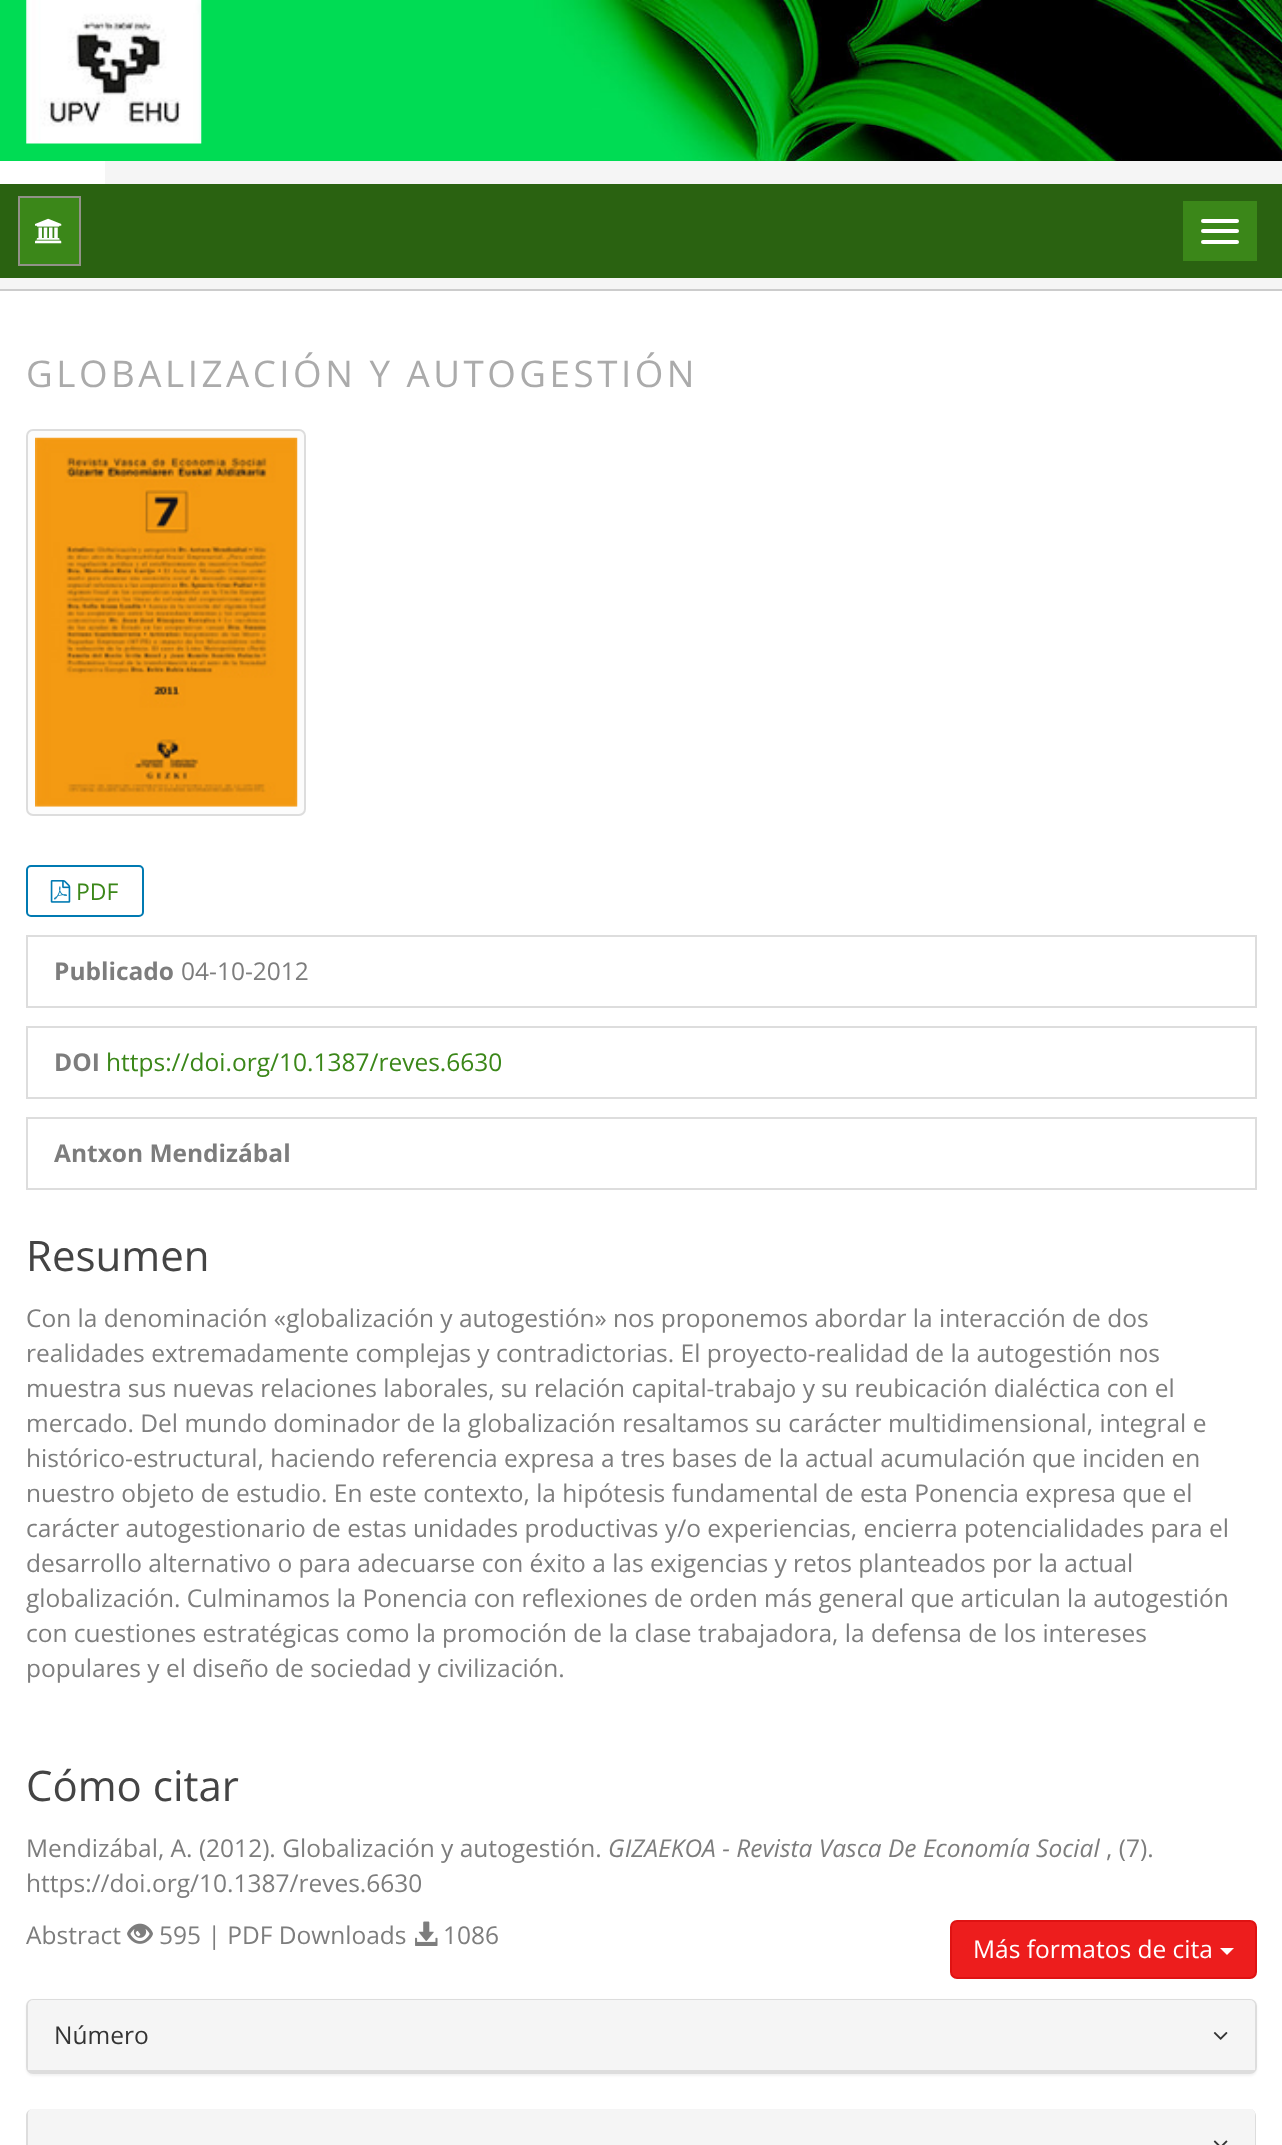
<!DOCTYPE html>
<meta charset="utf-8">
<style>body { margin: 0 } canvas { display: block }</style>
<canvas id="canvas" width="1282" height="2145"></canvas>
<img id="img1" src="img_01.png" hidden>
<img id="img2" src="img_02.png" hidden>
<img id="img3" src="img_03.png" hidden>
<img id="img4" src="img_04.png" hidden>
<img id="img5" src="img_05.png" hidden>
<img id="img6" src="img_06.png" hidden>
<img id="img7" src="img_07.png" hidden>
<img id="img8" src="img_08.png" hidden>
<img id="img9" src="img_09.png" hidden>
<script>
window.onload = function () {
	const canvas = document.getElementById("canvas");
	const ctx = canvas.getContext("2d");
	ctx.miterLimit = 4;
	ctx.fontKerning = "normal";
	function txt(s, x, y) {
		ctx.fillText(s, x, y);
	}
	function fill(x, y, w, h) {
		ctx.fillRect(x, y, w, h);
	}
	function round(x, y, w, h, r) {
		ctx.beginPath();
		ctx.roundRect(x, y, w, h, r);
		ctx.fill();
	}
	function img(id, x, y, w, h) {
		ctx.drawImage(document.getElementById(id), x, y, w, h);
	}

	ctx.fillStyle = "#FFFFFF";
	fill(0, 0, 1282, 2145);
	img("img1", 0, 0, 1282, 161);
	img("img2", 26, 0, 176, 144);
	ctx.fillStyle = "#F5F5F5";
	fill(105, 161, 1177, 23);
	ctx.fillStyle = "#2A6211";
	fill(0, 184, 1282, 94);
	ctx.fillStyle = "#3B8719";
	ctx.beginPath();
	ctx.rect(19, 197, 61, 68);
	ctx.fill();
	ctx.strokeStyle = "#929288";
	ctx.lineWidth = 2;
	ctx.stroke();
	img("img3", 35, 218, 27, 26);
	fill(1183, 201, 74, 60);
	ctx.fillStyle = "#FFFFFF";
	round(1201, 219, 38, 4, 2);
	round(1201, 229, 38, 4, 2);
	round(1201, 240, 38, 4, 2);
	ctx.fillStyle = "#F5F5F5";
	fill(0, 278, 1282, 11);
	ctx.fillStyle = "#CCCCCC";
	fill(0, 289, 1282, 2);
	ctx.fillStyle = "#FCFCFC";
	ctx.beginPath();
	ctx.roundRect(27, 430, 278, 385, 6);
	ctx.fill();
	ctx.strokeStyle = "#DDDDDD";
	ctx.stroke();
	img("img4", 35, 437, 263, 370);
	ctx.beginPath();
	ctx.roundRect(27, 866, 116, 50, 4);
	ctx.strokeStyle = "#007AB2";
	ctx.stroke();
	img("img5", 50, 880, 21, 23);
	ctx.strokeStyle = "#DDDDDD";
	ctx.strokeRect(27, 936, 1229, 71);
	ctx.strokeRect(27, 1027, 1229, 71);
	ctx.strokeRect(27, 1118, 1229, 71);
	ctx.fillStyle = "#ED1D1D";
	ctx.beginPath();
	ctx.roundRect(951, 1921, 305, 57, 6);
	ctx.fill();
	ctx.strokeStyle = "#DF1212";
	ctx.stroke();
	ctx.fillStyle = "#FFFFFF";
	ctx.beginPath();
	ctx.moveTo(1220, 1948);
	ctx.lineTo(1234, 1948);
	ctx.lineTo(1227, 1955);
	ctx.closePath();
	ctx.fill();
	img("img6", 127, 1923, 26, 21);
	img("img7", 415, 1921, 23, 25);
	ctx.fillStyle = "rgba(0, 0, 0, 0.05)";
	ctx.filter = "blur(1px)";
	ctx.beginPath();
	ctx.roundRect(26, 2000, 1231, 76, 7);
	ctx.fill();
	ctx.filter = "none";
	ctx.beginPath();
	ctx.roundRect(27, 2000, 1229, 73, 6);
	ctx.strokeStyle = "#DDDDDD";
	ctx.stroke();
	ctx.fillStyle = "#F5F5F5";
	ctx.beginPath();
	ctx.roundRect(28, 2000, 1227, 72, [5, 5, 0, 0]);
	ctx.fill();
	ctx.fillStyle = "#DDDDDD";
	fill(28, 2070, 1227, 2);
	img("img8", 1213, 2032, 15, 8);
	ctx.beginPath();
	ctx.moveTo(33, 2109);
	ctx.lineTo(1250, 2109);
	ctx.bezierCurveTo(1253, 2109, 1256, 2112, 1256, 2116);
	ctx.lineTo(1256, 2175);
	ctx.bezierCurveTo(1256, 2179, 1253, 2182, 1250, 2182);
	ctx.lineTo(33, 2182);
	ctx.bezierCurveTo(29, 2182, 26, 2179, 26, 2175);
	ctx.lineTo(26, 2116);
	ctx.bezierCurveTo(26, 2112, 29, 2109, 33, 2109);
	ctx.closePath();
	ctx.moveTo(33, 2109);
	ctx.lineTo(1250, 2109);
	ctx.bezierCurveTo(1252, 2109, 1255, 2112, 1255, 2116);
	ctx.lineTo(1255, 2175);
	ctx.bezierCurveTo(1255, 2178, 1252, 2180, 1250, 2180);
	ctx.lineTo(33, 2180);
	ctx.bezierCurveTo(30, 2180, 28, 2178, 28, 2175);
	ctx.lineTo(28, 2116);
	ctx.bezierCurveTo(28, 2112, 30, 2109, 33, 2109);
	ctx.closePath();
	ctx.fill("evenodd");
	ctx.fillStyle = "#F5F5F5";
	ctx.beginPath();
	ctx.moveTo(33, 2109);
	ctx.lineTo(1250, 2109);
	ctx.bezierCurveTo(1253, 2109, 1255, 2111, 1255, 2114);
	ctx.lineTo(1255, 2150);
	ctx.lineTo(28, 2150);
	ctx.lineTo(28, 2114);
	ctx.bezierCurveTo(28, 2111, 30, 2109, 33, 2109);
	ctx.closePath();
	ctx.fill();
	img("img9", 1213, 2140, 15, 5);
	ctx.letterSpacing = "3.5px";
	ctx.font = "36.75px Open Sans";
	ctx.fillStyle = "#ABABAB";
	txt("GLOBALIZACIÓN Y AUTOGESTIÓN", 26, 387);
	ctx.letterSpacing = "0px";
	ctx.font = "23px Open Sans";
	ctx.fillStyle = "#3B8719";
	txt("PDF", 76, 900);
	ctx.font = "bold 24.5px Open Sans";
	ctx.fillStyle = "#7D7D7D";
	txt("Publicado", 54, 980);
	ctx.font = "24.5px Open Sans";
	txt("04-10-2012", 181, 980);
	ctx.font = "bold 24.5px Open Sans";
	txt("DOI", 54, 1071);
	ctx.font = "24.5px Open Sans";
	ctx.fillStyle = "#3B8719";
	txt("https://doi.org/10.1387/reves.6630", 106, 1071);
	ctx.font = "bold 24.5px Open Sans";
	ctx.fillStyle = "#7D7D7D";
	txt("Antxon Mendizábal", 54, 1162);
	ctx.font = "42px Open Sans";
	ctx.fillStyle = "#444444";
	txt("Resumen", 26, 1271);
	ctx.font = "24.5px Open Sans";
	ctx.fillStyle = "#7D7D7D";
	txt("Con la denominación «globalización y autogestión» nos proponemos abordar la interacción de dos", 26, 1327);
	txt("realidades extremadamente complejas y contradictorias. El proyecto-realidad de la autogestión nos", 26, 1362);
	txt("muestra sus nuevas relaciones laborales, su relación capital-trabajo y su reubicación dialéctica con el", 26, 1397);
	txt("mercado. Del mundo dominador de la globalización resaltamos su carácter multidimensional, integral e", 26, 1432);
	txt("histórico-estructural, haciendo referencia expresa a tres bases de la actual acumulación que inciden en", 26, 1467);
	txt("nuestro objeto de estudio. En este contexto, la hipótesis fundamental de esta Ponencia expresa que el", 26, 1502);
	txt("carácter autogestionario de estas unidades productivas y/o experiencias, encierra potencialidades para el", 26, 1537);
	txt("desarrollo alternativo o para adecuarse con éxito a las exigencias y retos planteados por la actual", 26, 1572);
	txt("globalización. Culminamos la Ponencia con reflexiones de orden más general que articulan la autogestión", 26, 1607);
	txt("con cuestiones estratégicas como la promoción de la clase trabajadora, la defensa de los intereses", 26, 1642);
	txt("populares y el diseño de sociedad y civilización.", 26, 1677);
	ctx.font = "42px Open Sans";
	ctx.fillStyle = "#444444";
	txt("Cómo citar", 26, 1801);
	ctx.font = "24.5px Open Sans";
	ctx.fillStyle = "#7D7D7D";
	txt("Mendizábal, A. (2012). Globalización y autogestión.", 26, 1857);
	ctx.font = "italic 24.5px Open Sans";
	txt("GIZAEKOA - Revista Vasca De Economía Social", 608, 1857);
	ctx.font = "24.5px Open Sans";
	txt(", (7).", 1106, 1857);
	txt("https://doi.org/10.1387/reves.6630", 26, 1892);
	ctx.fillStyle = "#FFFFFF";
	txt("Más formatos de cita", 973, 1958);
	ctx.fillStyle = "#7D7D7D";
	txt("Abstract", 26, 1944);
	txt("595 | PDF Downloads", 159, 1944);
	txt("1086", 443, 1944);
	ctx.fillStyle = "#333333";
	txt("Número", 54, 2044);
};
</script>
